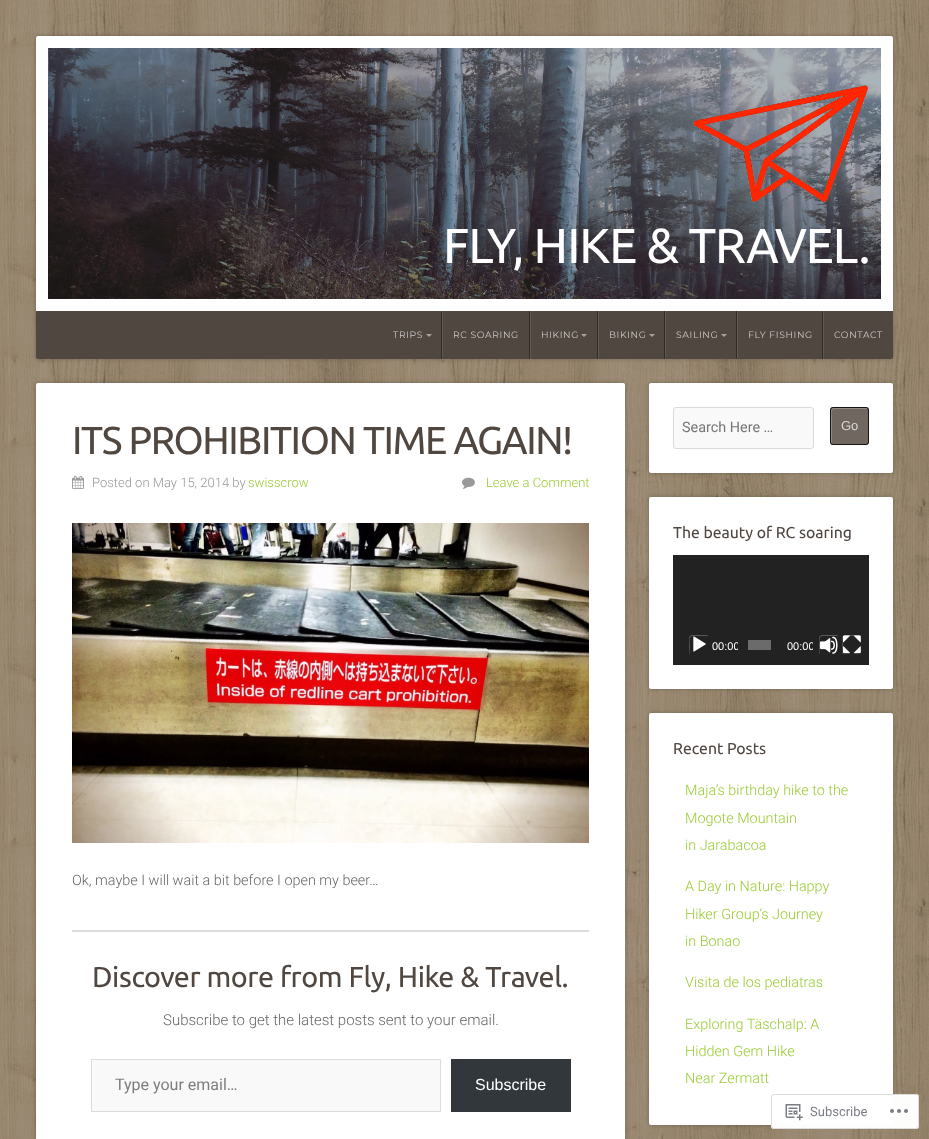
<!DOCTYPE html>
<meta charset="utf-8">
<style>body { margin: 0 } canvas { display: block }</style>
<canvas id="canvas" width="929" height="1139"></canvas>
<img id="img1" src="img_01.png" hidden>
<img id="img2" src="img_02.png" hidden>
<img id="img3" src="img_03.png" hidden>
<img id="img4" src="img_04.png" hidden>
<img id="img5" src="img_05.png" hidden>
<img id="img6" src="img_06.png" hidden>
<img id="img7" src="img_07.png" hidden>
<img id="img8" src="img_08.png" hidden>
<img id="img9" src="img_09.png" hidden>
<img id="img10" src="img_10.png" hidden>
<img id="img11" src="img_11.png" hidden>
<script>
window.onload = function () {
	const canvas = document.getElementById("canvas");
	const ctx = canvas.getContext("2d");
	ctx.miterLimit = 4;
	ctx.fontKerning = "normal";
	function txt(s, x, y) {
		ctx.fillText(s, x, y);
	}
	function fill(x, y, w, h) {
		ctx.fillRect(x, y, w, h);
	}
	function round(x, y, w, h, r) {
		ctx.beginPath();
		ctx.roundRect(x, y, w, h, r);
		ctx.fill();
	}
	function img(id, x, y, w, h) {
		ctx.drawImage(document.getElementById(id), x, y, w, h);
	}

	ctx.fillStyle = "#FFFFFF";
	fill(0, 0, 929, 1139);
	img("img1", 0, 0, 929, 1139);
	ctx.fillStyle = "rgba(0, 0, 0, 0.24)";
	ctx.filter = "blur(2px)";
	ctx.beginPath();
	ctx.roundRect(36, 36, 857, 323, 2);
	ctx.fill();
	ctx.filter = "none";
	ctx.fillStyle = "#FFFFFF";
	ctx.beginPath();
	ctx.roundRect(36, 36, 857, 275, [2, 2, 0, 0]);
	ctx.fill();
	img("img2", 48, 48, 833, 251);
	img("img3", 693, 85, 175, 118);
	ctx.fillStyle = "#504741";
	ctx.beginPath();
	ctx.roundRect(36, 311, 857, 48, [0, 0, 2, 2]);
	ctx.fill();
	ctx.fillStyle = "#302B27";
	fill(441, 312, 1, 47);
	ctx.fillStyle = "#A8A3A0";
	ctx.beginPath();
	ctx.moveTo(426, 334);
	ctx.lineTo(432, 334);
	ctx.lineTo(429, 337);
	ctx.closePath();
	ctx.fill();
	ctx.fillStyle = "#302B27";
	fill(529, 311, 1, 48);
	ctx.fillStyle = "#625954";
	fill(442, 311, 1, 48);
	ctx.fillStyle = "#302B27";
	fill(597, 311, 1, 48);
	ctx.fillStyle = "#625954";
	fill(530, 311, 1, 48);
	ctx.fillStyle = "#A8A3A0";
	ctx.beginPath();
	ctx.moveTo(581, 334);
	ctx.lineTo(587, 334);
	ctx.lineTo(584, 337);
	ctx.closePath();
	ctx.fill();
	ctx.fillStyle = "#302B27";
	fill(664, 311, 1, 48);
	ctx.fillStyle = "#625954";
	fill(598, 311, 1, 48);
	ctx.fillStyle = "#A8A3A0";
	ctx.beginPath();
	ctx.moveTo(649, 334);
	ctx.lineTo(655, 334);
	ctx.lineTo(652, 337);
	ctx.closePath();
	ctx.fill();
	ctx.fillStyle = "#302B27";
	fill(736, 311, 1, 48);
	ctx.fillStyle = "#625954";
	fill(665, 311, 1, 48);
	ctx.fillStyle = "#A8A3A0";
	ctx.beginPath();
	ctx.moveTo(721, 334);
	ctx.lineTo(727, 334);
	ctx.lineTo(724, 337);
	ctx.closePath();
	ctx.fill();
	ctx.fillStyle = "#302B27";
	fill(822, 311, 1, 48);
	ctx.fillStyle = "#625954";
	fill(737, 311, 1, 48);
	fill(823, 311, 1, 48);
	ctx.fillStyle = "rgba(0, 0, 0, 0.24)";
	ctx.filter = "blur(2px)";
	ctx.beginPath();
	ctx.roundRect(36, 383, 589, 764, 2);
	ctx.fill();
	ctx.filter = "none";
	ctx.fillStyle = "#FFFFFF";
	round(36, 383, 589, 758, 2);
	img("img4", 72, 475, 12, 14);
	img("img5", 462, 477, 13, 12);
	img("img6", 72, 523, 517, 320);
	ctx.fillStyle = "#DDDDDD";
	fill(72, 930, 517, 2);
	ctx.fillStyle = "#F9F9F9";
	ctx.beginPath();
	ctx.rect(91.5, 1059.5, 349, 52);
	ctx.fill();
	ctx.strokeStyle = "#DBDBDB";
	ctx.stroke();
	ctx.fillStyle = "#32373C";
	fill(451, 1059, 120, 53);
	ctx.fillStyle = "rgba(0, 0, 0, 0.24)";
	ctx.filter = "blur(2px)";
	ctx.beginPath();
	ctx.roundRect(649, 383, 244, 90, 2);
	ctx.fill();
	ctx.filter = "none";
	ctx.fillStyle = "#FFFFFF";
	round(649, 383, 244, 90, 2);
	ctx.fillStyle = "#F9F9F9";
	round(673, 407, 141, 42, 3);
	ctx.beginPath();
	ctx.roundRect(673.5, 407.5, 140, 41, 2.5);
	ctx.strokeStyle = "rgba(0, 0, 0, 0.12)";
	ctx.stroke();
	ctx.fillStyle = "#706760";
	round(830, 407, 39, 38, 3);
	ctx.fillStyle = "#928B86";
	ctx.beginPath();
	ctx.moveTo(834, 409);
	ctx.lineTo(868, 409);
	ctx.bezierCurveTo(867.5, 408.5, 867, 408, 866, 408);
	ctx.lineTo(833, 408);
	ctx.bezierCurveTo(832, 408, 831, 409, 831, 410);
	ctx.lineTo(831, 442);
	ctx.bezierCurveTo(831, 443, 831.5, 443.5, 832, 444);
	ctx.lineTo(832, 416.5);
	ctx.bezierCurveTo(832, 415.5, 830.5, 409, 834, 409);
	ctx.closePath();
	ctx.fill();
	ctx.beginPath();
	ctx.roundRect(830.5, 407.5, 38, 37, 2.5);
	ctx.strokeStyle = "rgba(0, 0, 0, 0.8)";
	ctx.stroke();
	ctx.fillStyle = "rgba(0, 0, 0, 0.24)";
	ctx.filter = "blur(2px)";
	ctx.beginPath();
	ctx.roundRect(649, 497, 244, 192, 2);
	ctx.fill();
	ctx.filter = "none";
	ctx.fillStyle = "#FFFFFF";
	round(649, 497, 244, 192, 2);
	ctx.fillStyle = "#222222";
	fill(673, 555, 196, 110);
	img("img7", 693, 636, 13, 16);
	ctx.fillStyle = "#575757";
	ctx.beginPath();
	ctx.moveTo(693, 636);
	ctx.lineTo(705, 636);
	ctx.bezierCurveTo(706.5, 636, 708, 636, 708.5, 636.5);
	ctx.bezierCurveTo(708, 635.5, 707, 635, 706, 635);
	ctx.lineTo(692, 635);
	ctx.bezierCurveTo(690.5, 635, 689, 636.5, 689, 638);
	ctx.lineTo(689, 652);
	ctx.bezierCurveTo(689, 653, 689.5, 654, 690, 654.5);
	ctx.lineTo(689.5, 652);
	ctx.lineTo(690, 646);
	ctx.lineTo(689.5, 640);
	ctx.lineTo(690, 637.5);
	ctx.bezierCurveTo(690.5, 636.5, 692, 636, 693, 636);
	ctx.closePath();
	ctx.fill();
	ctx.fillStyle = "#6B6B6B";
	fill(748, 640, 23, 10);
	img("img8", 820, 636, 18, 18);
	ctx.fillStyle = "#575757";
	ctx.beginPath();
	ctx.moveTo(823, 636);
	ctx.lineTo(835, 636);
	ctx.bezierCurveTo(836.5, 636, 838, 636, 838.5, 636.5);
	ctx.bezierCurveTo(838, 635.5, 837, 635, 836, 635);
	ctx.lineTo(822, 635);
	ctx.bezierCurveTo(820.5, 635, 819, 636.5, 819, 638);
	ctx.lineTo(819, 652);
	ctx.bezierCurveTo(819, 653, 819.5, 654, 820, 654.5);
	ctx.lineTo(819.5, 652);
	ctx.lineTo(820, 646);
	ctx.lineTo(819.5, 640);
	ctx.lineTo(820, 637.5);
	ctx.bezierCurveTo(820.5, 636.5, 822, 636, 823, 636);
	ctx.closePath();
	ctx.fill();
	img("img9", 843, 635, 18, 19);
	ctx.fillStyle = "rgba(255, 255, 255, 0.24)";
	ctx.beginPath();
	ctx.moveTo(846, 636);
	ctx.lineTo(858, 636);
	ctx.bezierCurveTo(859.5, 636, 861, 636, 861.5, 636.5);
	ctx.bezierCurveTo(861, 635.5, 860, 635, 859, 635);
	ctx.lineTo(845, 635);
	ctx.bezierCurveTo(843.5, 635, 842, 636.5, 842, 638);
	ctx.lineTo(842, 652);
	ctx.bezierCurveTo(842, 653, 842.5, 654, 843, 654.5);
	ctx.lineTo(842.5, 652);
	ctx.lineTo(843, 646);
	ctx.lineTo(842.5, 640);
	ctx.lineTo(843, 637.5);
	ctx.bezierCurveTo(843.5, 636.5, 845, 636, 846, 636);
	ctx.closePath();
	ctx.fill();
	ctx.fillStyle = "rgba(0, 0, 0, 0.24)";
	ctx.filter = "blur(2px)";
	ctx.beginPath();
	ctx.roundRect(649, 713, 244, 412, 2);
	ctx.fill();
	ctx.filter = "none";
	ctx.fillStyle = "#FFFFFF";
	round(649, 713, 244, 412, 2);
	ctx.fillStyle = "rgba(255, 255, 255, 0.98)";
	round(771, 1094, 148, 35, 3);
	ctx.beginPath();
	ctx.roundRect(771.5, 1094.5, 147, 34, 2.5);
	ctx.strokeStyle = "rgba(220, 220, 222, 0.98)";
	ctx.stroke();
	img("img10", 785, 1104, 18, 17);
	img("img11", 890, 1109, 18, 4);
	ctx.letterSpacing = "-1px";
	ctx.font = "49px Ubuntu";
	ctx.fillStyle = "#FFFFFF";
	txt("FLY, HIKE & TRAVEL.", 443, 263);
	ctx.letterSpacing = "0.6px";
	ctx.font = "9.25px Montserrat";
	ctx.fillStyle = "#CBC8C6";
	txt("TRIPS", 393, 338);
	txt("RC SOARING", 453, 338);
	txt("HIKING", 541, 338);
	txt("BIKING", 609, 338);
	txt("SAILING", 676, 338);
	txt("FLY FISHING", 748, 338);
	txt("CONTACT", 834, 338);
	ctx.letterSpacing = "-1.4px";
	ctx.font = "38.9px Ubuntu";
	ctx.fillStyle = "#504741";
	txt("ITS PROHIBITION TIME AGAIN!", 72, 454);
	ctx.letterSpacing = "0px";
	ctx.font = "300 13px Roboto";
	ctx.fillStyle = "#999999";
	txt("Posted on May 15, 2014 by", 92, 487);
	ctx.fillStyle = "#99CC33";
	txt("swisscrow", 248, 487);
	txt("Leave a Comment", 486, 487);
	ctx.font = "300 14.4px Roboto";
	ctx.fillStyle = "#666666";
	txt("Ok, maybe I will wait a bit before I open my beer…", 72, 885);
	ctx.letterSpacing = "-0.4px";
	ctx.font = "28.75px Ubuntu";
	ctx.fillStyle = "#504741";
	txt("Discover more from Fly, Hike & Travel.", 92, 987);
	ctx.letterSpacing = "0px";
	ctx.font = "300 15px Roboto";
	ctx.fillStyle = "#666666";
	txt("Subscribe to get the latest posts sent to your email.", 163, 1025);
	ctx.font = "16px Roboto";
	ctx.fillStyle = "#7D7D7D";
	txt("Type your email…", 115, 1090);
	ctx.font = "16px Liberation Sans";
	ctx.fillStyle = "#FFFFFF";
	txt("Subscribe", 475, 1090);
	ctx.font = "14.4px Roboto";
	ctx.fillStyle = "#757575";
	txt("Search Here …", 682, 432);
	ctx.font = "13px Liberation Sans";
	ctx.fillStyle = "#DBD9D7";
	txt("Go", 841, 430);
	ctx.font = "15.8px Ubuntu";
	ctx.fillStyle = "#504741";
	txt("The beauty of RC soaring", 673, 538);
	ctx.save();
	ctx.beginPath();
	ctx.rect(706, 625, 32, 40);
	ctx.clip();
	ctx.font = "11px Liberation Sans";
	ctx.fillStyle = "#FFFFFF";
	txt("00:00", 712, 650);
	ctx.restore();
	ctx.save();
	ctx.beginPath();
	ctx.rect(781, 625, 32, 40);
	ctx.clip();
	ctx.font = "11px Liberation Sans";
	ctx.fillStyle = "#FFFFFF";
	txt("00:00", 787, 650);
	ctx.restore();
	txt("Recent Posts", 673, 754);
	ctx.font = "300 14.4px Roboto";
	ctx.fillStyle = "#99CC33";
	txt("Maja’s birthday hike to the", 685, 795);
	txt("Mogote Mountain", 685, 823);
	txt("in Jarabacoa", 685, 850);
	txt("A Day in Nature: Happy", 685, 891);
	txt("Hiker Group’s Journey", 685, 919);
	txt("in Bonao", 685, 946);
	txt("Visita de los pediatras", 685, 987);
	txt("Exploring Täschalp: A", 685, 1029);
	txt("Hidden Gem Hike", 685, 1056);
	txt("Near Zermatt", 685, 1083);
	ctx.font = "13px Roboto";
	ctx.fillStyle = "#7B7F85";
	txt("Subscribe", 810, 1116);
};
</script>
